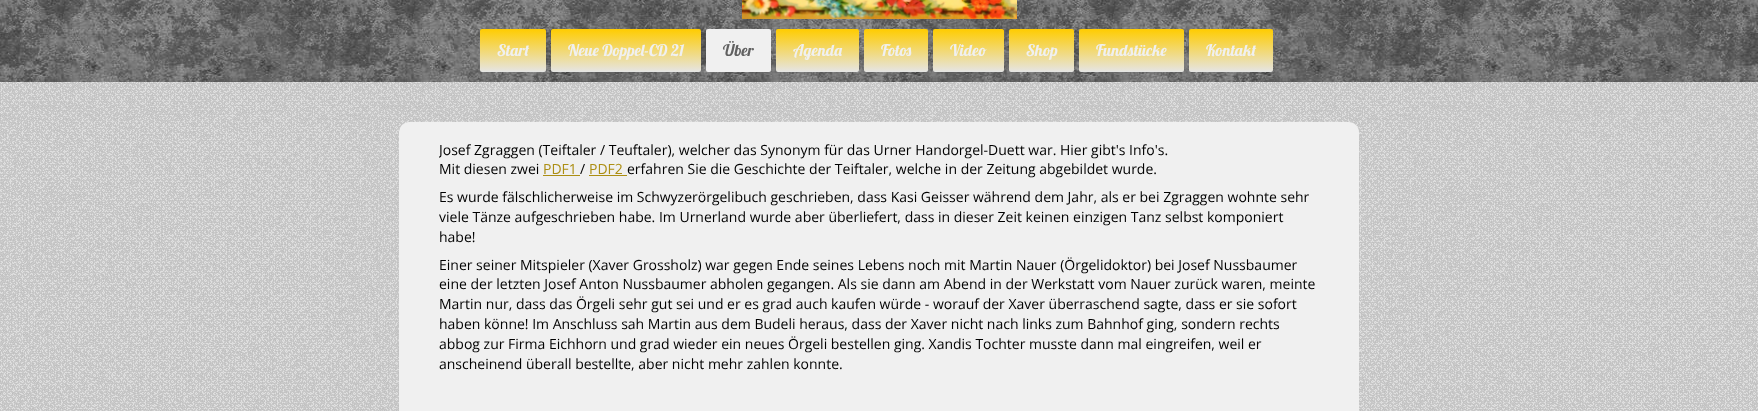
<!DOCTYPE html>
<meta charset="utf-8">
<style>body { margin: 0 } canvas { display: block }</style>
<canvas id="canvas" width="1758" height="411"></canvas>
<img id="img1" src="img_01.png" hidden>
<img id="img2" src="img_02.png" hidden>
<img id="img3" src="img_03.png" hidden>
<script>
window.onload = function () {
	const canvas = document.getElementById("canvas");
	const ctx = canvas.getContext("2d");
	ctx.miterLimit = 4;
	ctx.fontKerning = "normal";
	function txt(s, x, y) {
		ctx.fillText(s, x, y);
	}
	function fill(x, y, w, h) {
		ctx.fillRect(x, y, w, h);
	}
	function round(x, y, w, h, r) {
		ctx.beginPath();
		ctx.roundRect(x, y, w, h, r);
		ctx.fill();
	}
	function img(id, x, y, w, h) {
		ctx.drawImage(document.getElementById(id), x, y, w, h);
	}
	let gradient;

	ctx.fillStyle = "#E0E0E0";
	fill(0, 0, 1758, 411);
	img("img1", 0, 82, 1758, 329);
	img("img2", 0, 0, 1758, 82);
	img("img3", 742, 0, 275, 19);
	gradient = ctx.createLinearGradient(513, 72, 513, 29);
	gradient.addColorStop(0, "#E5E5E5");
	gradient.addColorStop(1, "#FFCC00");
	ctx.fillStyle = gradient;
	round(480, 29, 66, 43, 2);
	gradient = ctx.createLinearGradient(626, 72, 626, 29);
	gradient.addColorStop(0, "#E5E5E5");
	gradient.addColorStop(1, "#FFCC00");
	ctx.fillStyle = gradient;
	round(551, 29, 150, 43, 2);
	ctx.fillStyle = "#F0F0F0";
	round(706, 29, 65, 43, 2);
	gradient = ctx.createLinearGradient(818, 72, 818, 29);
	gradient.addColorStop(0, "#E5E5E5");
	gradient.addColorStop(1, "#FFCC00");
	ctx.fillStyle = gradient;
	round(776, 29, 83, 43, 2);
	gradient = ctx.createLinearGradient(896, 72, 896, 29);
	gradient.addColorStop(0, "#E5E5E5");
	gradient.addColorStop(1, "#FFCC00");
	ctx.fillStyle = gradient;
	round(864, 29, 64, 43, 2);
	gradient = ctx.createLinearGradient(969, 72, 969, 29);
	gradient.addColorStop(0, "#E5E5E5");
	gradient.addColorStop(1, "#FFCC00");
	ctx.fillStyle = gradient;
	round(933, 29, 71, 43, 2);
	gradient = ctx.createLinearGradient(1042, 72, 1042, 29);
	gradient.addColorStop(0, "#E5E5E5");
	gradient.addColorStop(1, "#FFCC00");
	ctx.fillStyle = gradient;
	round(1009, 29, 65, 43, 2);
	gradient = ctx.createLinearGradient(1132, 72, 1132, 29);
	gradient.addColorStop(0, "#E5E5E5");
	gradient.addColorStop(1, "#FFCC00");
	ctx.fillStyle = gradient;
	round(1079, 29, 105, 43, 2);
	gradient = ctx.createLinearGradient(1231, 72, 1231, 29);
	gradient.addColorStop(0, "#E5E5E5");
	gradient.addColorStop(1, "#FFCC00");
	ctx.fillStyle = gradient;
	round(1189, 29, 84, 43, 2);
	ctx.fillStyle = "#F0F0F0";
	round(399, 122, 960, 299, 10);
	ctx.fillStyle = "#AC8E13";
	fill(543, 175, 37, 1);
	fill(589, 175, 38, 1);
	ctx.font = "16px Lobster";
	ctx.fillStyle = "#F0F0F0";
	txt("Start", 497, 56);
	txt("Neue Doppel-CD 21", 568, 56);
	ctx.fillStyle = "#616161";
	txt("Über", 723, 56);
	ctx.fillStyle = "#F0F0F0";
	txt("Agenda", 793, 56);
	txt("Fotos", 881, 56);
	txt("Video", 950, 56);
	txt("Shop", 1026, 56);
	txt("Fundstücke", 1096, 56);
	txt("Kontakt", 1206, 56);
	ctx.save();
	ctx.beginPath();
	ctx.rect(439, 132, 880, 250);
	ctx.clip();
	ctx.font = "14px Open Sans";
	ctx.fillStyle = "#000000";
	txt("Josef Zgraggen (Teiftaler / Teuftaler), welcher das Synonym für das Urner Handorgel-Duett war. Hier gibt's Info's.", 439, 155);
	ctx.restore();
	ctx.font = "14px Open Sans";
	ctx.fillStyle = "#000000";
	txt("Mit diesen zwei", 439, 174);
	ctx.fillStyle = "#AC8E13";
	txt("PDF1", 543, 174);
	ctx.fillStyle = "#000000";
	txt("/", 580, 174);
	ctx.fillStyle = "#AC8E13";
	txt("PDF2", 589, 174);
	ctx.fillStyle = "#000000";
	txt("erfahren Sie die Geschichte der Teiftaler, welche in der Zeitung abgebildet wurde.", 627, 174);
	txt("Es wurde fälschlicherweise im Schwyzerörgelibuch geschrieben, dass Kasi Geisser während dem Jahr, als er bei Zgraggen wohnte sehr", 439, 202);
	txt("viele Tänze aufgeschrieben habe. Im Urnerland wurde aber überliefert, dass in dieser Zeit keinen einzigen Tanz selbst komponiert", 439, 222);
	txt("habe!", 439, 242);
	txt("Einer seiner Mitspieler (Xaver Grossholz) war gegen Ende seines Lebens noch mit Martin Nauer (Örgelidoktor) bei Josef Nussbaumer", 439, 270);
	txt("eine der letzten Josef Anton Nussbaumer abholen gegangen. Als sie dann am Abend in der Werkstatt vom Nauer zurück waren, meinte", 439, 289);
	txt("Martin nur, dass das Örgeli sehr gut sei und er es grad auch kaufen würde - worauf der Xaver überraschend sagte, dass er sie sofort", 439, 309);
	txt("haben könne! Im Anschluss sah Martin aus dem Budeli heraus, dass der Xaver nicht nach links zum Bahnhof ging, sondern rechts", 439, 329);
	txt("abbog zur Firma Eichhorn und grad wieder ein neues Örgeli bestellen ging. Xandis Tochter musste dann mal eingreifen, weil er", 439, 349);
	txt("anscheinend überall bestellte, aber nicht mehr zahlen konnte.", 439, 369);
};
</script>
